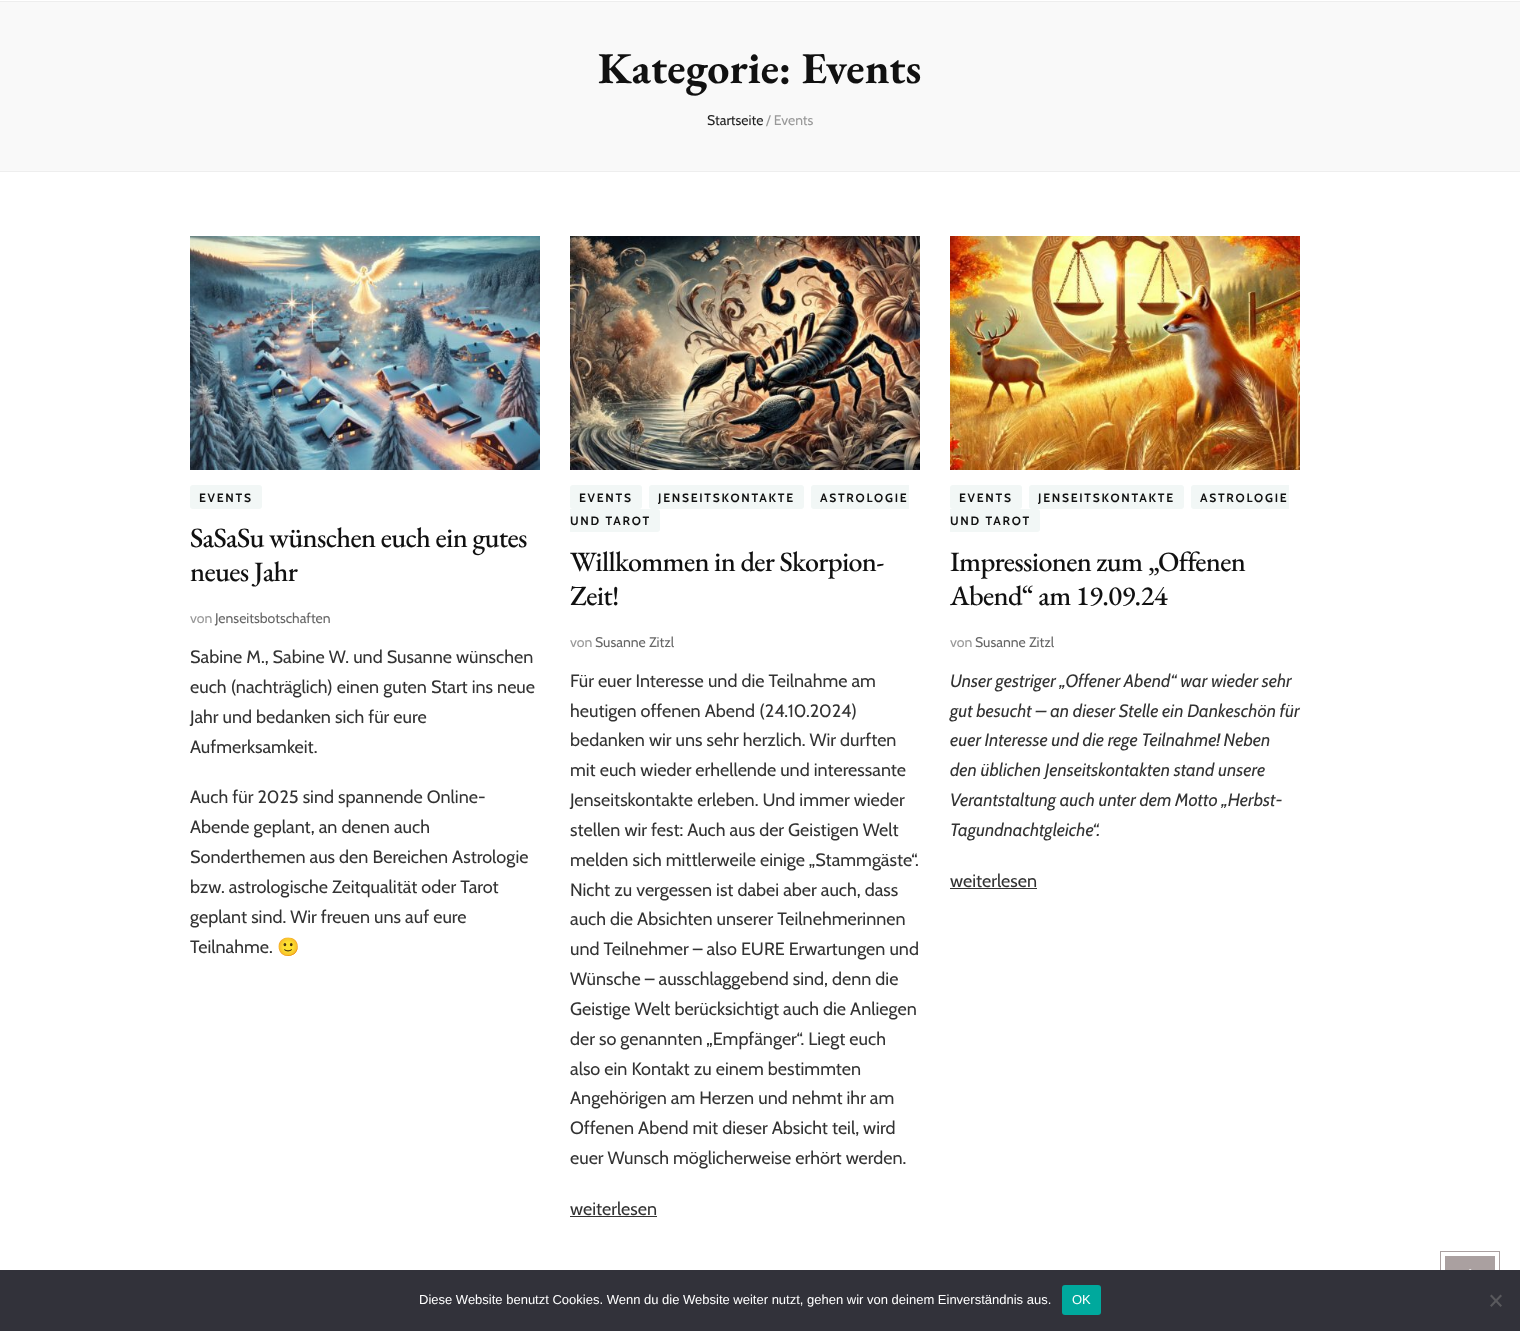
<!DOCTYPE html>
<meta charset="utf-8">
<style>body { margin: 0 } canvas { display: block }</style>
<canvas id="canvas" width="1520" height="1331"></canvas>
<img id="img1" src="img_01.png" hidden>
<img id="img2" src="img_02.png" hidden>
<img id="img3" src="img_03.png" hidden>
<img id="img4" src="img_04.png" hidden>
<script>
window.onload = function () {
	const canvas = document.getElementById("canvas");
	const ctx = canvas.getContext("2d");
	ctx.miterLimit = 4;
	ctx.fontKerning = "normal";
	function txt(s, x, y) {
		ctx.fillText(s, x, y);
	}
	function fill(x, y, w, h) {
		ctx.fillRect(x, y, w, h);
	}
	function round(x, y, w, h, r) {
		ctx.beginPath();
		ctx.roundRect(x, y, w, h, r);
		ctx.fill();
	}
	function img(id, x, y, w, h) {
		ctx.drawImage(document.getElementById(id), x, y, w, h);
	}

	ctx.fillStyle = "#FFFFFF";
	fill(0, 0, 1520, 1331);
	ctx.fillStyle = "#EEEEEE";
	fill(0, 1, 1520, 1);
	ctx.fillStyle = "#F9F9F9";
	fill(0, 2, 1520, 169);
	ctx.fillStyle = "#EEEEEE";
	fill(0, 171, 1520, 1);
	img("img1", 190, 236, 350, 234);
	ctx.fillStyle = "#F2F7F6";
	round(190, 485, 72, 24, 3);
	img("img2", 570, 236, 350, 234);
	round(570, 485, 72, 24, 3);
	round(649, 485, 155, 24, 3);
	ctx.beginPath();
	ctx.roundRect(811, 485, 98, 24, [3, 0, 0, 3]);
	ctx.fill();
	ctx.beginPath();
	ctx.roundRect(570, 509, 90, 23, [0, 3, 3, 0]);
	ctx.fill();
	ctx.fillStyle = "#333333";
	fill(570, 1216, 87, 1);
	img("img3", 950, 236, 350, 234);
	ctx.fillStyle = "#F2F7F6";
	round(950, 485, 72, 24, 3);
	round(1029, 485, 155, 24, 3);
	ctx.beginPath();
	ctx.roundRect(1191, 485, 98, 24, [3, 0, 0, 3]);
	ctx.fill();
	ctx.beginPath();
	ctx.roundRect(950, 509, 90, 23, [0, 3, 3, 0]);
	ctx.fill();
	ctx.fillStyle = "#333333";
	fill(950, 888, 87, 1);
	ctx.fillStyle = "#AAA0A0";
	fill(1440, 1251, 60, 19);
	img("img4", 1469, 1269, 3, 1);
	ctx.strokeStyle = "#FFFFFF";
	ctx.lineWidth = 4;
	ctx.strokeRect(1443, 1254, 54, 54);
	ctx.fillStyle = "#32323A";
	fill(0, 1270, 1520, 61);
	ctx.fillStyle = "#00A99D";
	round(1062, 1285, 39, 30, 3);
	ctx.fillStyle = "#59595D";
	ctx.beginPath();
	ctx.moveTo(1500.5, 1294.5);
	ctx.lineTo(1502, 1296);
	ctx.lineTo(1491.5, 1307);
	ctx.lineTo(1490, 1305.5);
	ctx.closePath();
	ctx.fill();
	ctx.beginPath();
	ctx.moveTo(1490, 1296);
	ctx.lineTo(1491.5, 1294.5);
	ctx.lineTo(1502, 1305.5);
	ctx.lineTo(1500.5, 1307);
	ctx.closePath();
	ctx.fill();
	ctx.font = "bold 44px EB Garamond";
	ctx.fillStyle = "#111111";
	txt("Kategorie: Events", 598, 83);
	ctx.font = "14px Cabin";
	ctx.fillStyle = "#222222";
	txt("Startseite", 707, 125);
	ctx.fillStyle = "#999999";
	txt("/ Events", 766, 125);
	ctx.letterSpacing = "1.75px";
	ctx.font = "bold 12px Cabin";
	ctx.fillStyle = "#111111";
	txt("EVENTS", 199, 502);
	ctx.letterSpacing = "-0.7px";
	ctx.font = "500 28px EB Garamond";
	txt("SaSaSu wünschen euch ein gutes", 190, 547);
	txt("neues Jahr", 190, 581);
	ctx.letterSpacing = "0px";
	ctx.font = "14px Cabin";
	ctx.fillStyle = "#999999";
	txt("von", 190, 623);
	ctx.fillStyle = "#666666";
	txt("Jenseitsbotschaften", 215, 623);
	ctx.font = "18px Cabin";
	ctx.fillStyle = "#333333";
	txt("Sabine M., Sabine W. und Susanne wünschen", 190, 663);
	txt("euch (nachträglich) einen guten Start ins neue", 190, 693);
	txt("Jahr und bedanken sich für eure", 190, 723);
	txt("Aufmerksamkeit.", 190, 753);
	txt("Auch für 2025 sind spannende Online-", 190, 803);
	txt("Abende geplant, an denen auch", 190, 833);
	txt("Sonderthemen aus den Bereichen Astrologie", 190, 863);
	txt("bzw. astrologische Zeitqualität oder Tarot", 190, 893);
	txt("geplant sind. Wir freuen uns auf eure", 190, 923);
	txt("Teilnahme.", 190, 953);
	ctx.font = "18px Noto Color Emoji";
	txt("🙂", 277, 953);
	ctx.letterSpacing = "1.75px";
	ctx.font = "bold 12px Cabin";
	ctx.fillStyle = "#111111";
	txt("EVENTS", 579, 502);
	txt("JENSEITSKONTAKTE", 658, 502);
	txt("ASTROLOGIE", 820, 502);
	txt("UND TAROT", 570, 525);
	ctx.letterSpacing = "-0.7px";
	ctx.font = "500 28px EB Garamond";
	txt("Willkommen in der Skorpion-", 570, 571);
	txt("Zeit!", 570, 605);
	ctx.letterSpacing = "0px";
	ctx.font = "14px Cabin";
	ctx.fillStyle = "#999999";
	txt("von", 570, 647);
	ctx.fillStyle = "#666666";
	txt("Susanne Zitzl", 595, 647);
	ctx.font = "18px Cabin";
	ctx.fillStyle = "#333333";
	txt("Für euer Interesse und die Teilnahme am", 570, 687);
	txt("heutigen offenen Abend (24.10.2024)", 570, 717);
	txt("bedanken wir uns sehr herzlich. Wir durften", 570, 746);
	txt("mit euch wieder erhellende und interessante", 570, 776);
	txt("Jenseitskontakte erleben. Und immer wieder", 570, 806);
	txt("stellen wir fest: Auch aus der Geistigen Welt", 570, 836);
	txt("melden sich mittlerweile einige „Stammgäste“.", 570, 866);
	txt("Nicht zu vergessen ist dabei aber auch, dass", 570, 896);
	txt("auch die Absichten unserer Teilnehmerinnen", 570, 925);
	txt("und Teilnehmer – also EURE Erwartungen und", 570, 955);
	txt("Wünsche – ausschlaggebend sind, denn die", 570, 985);
	txt("Geistige Welt berücksichtigt auch die Anliegen", 570, 1015);
	txt("der so genannten „Empfänger“. Liegt euch", 570, 1045);
	txt("also ein Kontakt zu einem bestimmten", 570, 1075);
	txt("Angehörigen am Herzen und nehmt ihr am", 570, 1104);
	txt("Offenen Abend mit dieser Absicht teil, wird", 570, 1134);
	txt("euer Wunsch möglicherweise erhört werden.", 570, 1164);
	txt("weiterlesen", 570, 1215);
	ctx.letterSpacing = "1.75px";
	ctx.font = "bold 12px Cabin";
	ctx.fillStyle = "#111111";
	txt("EVENTS", 959, 502);
	txt("JENSEITSKONTAKTE", 1038, 502);
	txt("ASTROLOGIE", 1200, 502);
	txt("UND TAROT", 950, 525);
	ctx.letterSpacing = "-0.7px";
	ctx.font = "500 28px EB Garamond";
	txt("Impressionen zum „Offenen", 950, 571);
	txt("Abend“ am 19.09.24", 950, 605);
	ctx.letterSpacing = "0px";
	ctx.font = "14px Cabin";
	ctx.fillStyle = "#999999";
	txt("von", 950, 647);
	ctx.fillStyle = "#666666";
	txt("Susanne Zitzl", 975, 647);
	ctx.font = "italic 18px Cabin";
	ctx.fillStyle = "#333333";
	txt("Unser gestriger „Offener Abend“ war wieder sehr", 950, 687);
	txt("gut besucht – an dieser Stelle ein Dankeschön für", 950, 717);
	txt("euer Interesse und die rege Teilnahme! Neben", 950, 746);
	txt("den üblichen Jenseitskontakten stand unsere", 950, 776);
	txt("Verantstaltung auch unter dem Motto „Herbst-", 950, 806);
	txt("Tagundnachtgleiche“.", 950, 836);
	ctx.font = "18px Cabin";
	txt("weiterlesen", 950, 887);
	ctx.font = "13px Liberation Sans";
	ctx.fillStyle = "#FFFFFF";
	txt("Diese Website benutzt Cookies. Wenn du die Website weiter nutzt, gehen wir von deinem Einverständnis aus.", 419, 1304);
	txt("OK", 1072, 1304);
};
</script>
